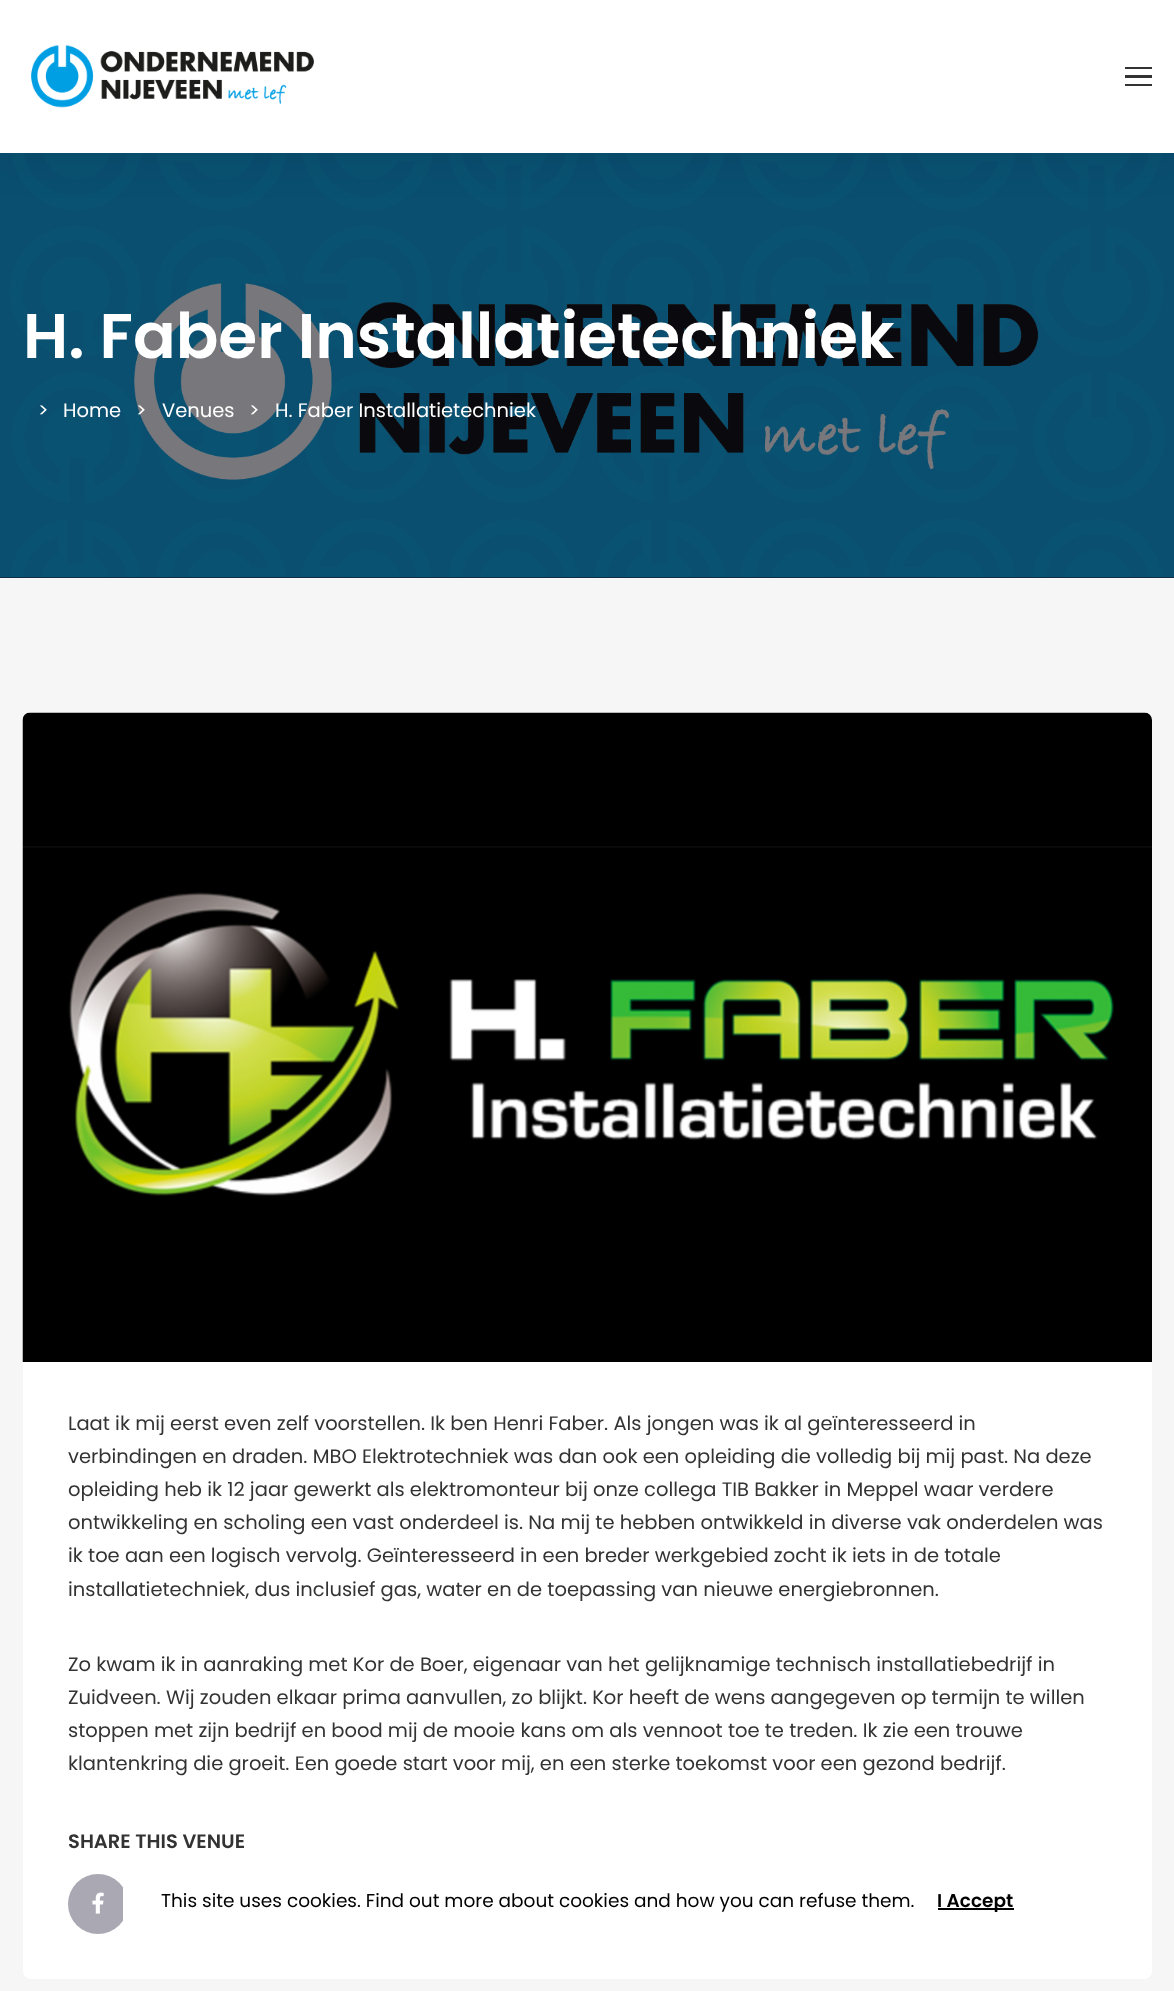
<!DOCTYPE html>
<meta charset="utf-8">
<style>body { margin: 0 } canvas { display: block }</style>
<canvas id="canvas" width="1174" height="1991"></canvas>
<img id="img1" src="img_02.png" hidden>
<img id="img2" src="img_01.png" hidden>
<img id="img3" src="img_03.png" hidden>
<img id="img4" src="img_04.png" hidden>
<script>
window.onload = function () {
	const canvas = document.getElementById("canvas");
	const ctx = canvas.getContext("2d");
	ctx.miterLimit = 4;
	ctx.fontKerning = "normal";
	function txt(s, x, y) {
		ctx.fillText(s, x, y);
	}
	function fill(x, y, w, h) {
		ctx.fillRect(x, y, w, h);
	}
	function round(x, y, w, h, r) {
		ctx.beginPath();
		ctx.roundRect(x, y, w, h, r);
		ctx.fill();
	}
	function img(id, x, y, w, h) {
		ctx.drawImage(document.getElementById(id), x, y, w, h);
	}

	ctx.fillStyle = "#F6F6F6";
	fill(0, 0, 1174, 1991);
	ctx.fillStyle = "#121219";
	fill(0, 153, 1174, 425);
	img("img1", 0, 153, 1174, 425);
	ctx.fillStyle = "rgba(0, 0, 0, 0.1)";
	ctx.filter = "blur(22.5px)";
	ctx.beginPath();
	ctx.rect(0, 2, 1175, 153);
	ctx.fill();
	ctx.filter = "none";
	ctx.fillStyle = "#FFFFFF";
	fill(0, 0, 1174, 153);
	img("img2", 31, 45, 283, 63);
	ctx.fillStyle = "#333333";
	fill(1125, 67, 27, 2);
	fill(1125, 75, 27, 3);
	fill(1125, 84, 27, 2);
	ctx.fillStyle = "#FFFFFF";
	round(23, 713, 1129, 1266, 8);
	img("img3", 22, 712, 1130, 650);
	ctx.fillStyle = "#A9A8B3";
	ctx.beginPath();
	ctx.arc(98, 1904, 30, 0, Math.PI * 2);
	ctx.fill();
	img("img4", 92, 1892, 12, 22);
	ctx.fillStyle = "#FFFFFF";
	fill(123, 1887, 5, 34);
	ctx.fillStyle = "#000000";
	fill(938, 1908, 76, 2);
	ctx.font = "600 63px Poppins";
	ctx.fillStyle = "#FFFFFF";
	txt("H. Faber Installatietechniek", 23, 358);
	ctx.font = "19.5px Poppins";
	txt(">", 38, 417);
	txt("Home", 63, 417);
	txt(">", 136, 417);
	txt("Venues", 162, 417);
	txt(">", 249, 417);
	txt("H. Faber Installatietechniek", 275, 417);
	ctx.fillStyle = "#333333";
	txt("Laat ik mij eerst even zelf voorstellen. Ik ben Henri Faber. Als jongen was ik al geïnteresseerd in", 68, 1430);
	txt("verbindingen en draden. MBO Elektrotechniek was dan ook een opleiding die volledig bij mij past. Na deze", 68, 1463);
	txt("opleiding heb ik 12 jaar gewerkt als elektromonteur bij onze collega TIB Bakker in Meppel waar verdere", 68, 1496);
	txt("ontwikkeling en scholing een vast onderdeel is. Na mij te hebben ontwikkeld in diverse vak onderdelen was", 68, 1529);
	txt("ik toe aan een logisch vervolg. Geïnteresseerd in een breder werkgebied zocht ik iets in de totale", 68, 1562);
	txt("installatietechniek, dus inclusief gas, water en de toepassing van nieuwe energiebronnen.", 68, 1596);
	txt("Zo kwam ik in aanraking met Kor de Boer, eigenaar van het gelijknamige technisch installatiebedrijf in", 68, 1671);
	txt("Zuidveen. Wij zouden elkaar prima aanvullen, zo blijkt. Kor heeft de wens aangegeven op termijn te willen", 68, 1704);
	txt("stoppen met zijn bedrijf en bood mij de mooie kans om als vennoot toe te treden. Ik zie een trouwe", 68, 1737);
	txt("klantenkring die groeit. Een goede start voor mij, en een sterke toekomst voor een gezond bedrijf.", 68, 1770);
	ctx.font = "600 19.5px Poppins";
	txt("SHARE THIS VENUE", 68, 1848);
	ctx.font = "18.5px Poppins";
	ctx.fillStyle = "#000000";
	txt("This site uses cookies. Find out more about cookies and how you can refuse them.", 161, 1907);
	ctx.font = "600 18.5px Poppins";
	txt("I Accept", 937, 1907);
};
</script>
